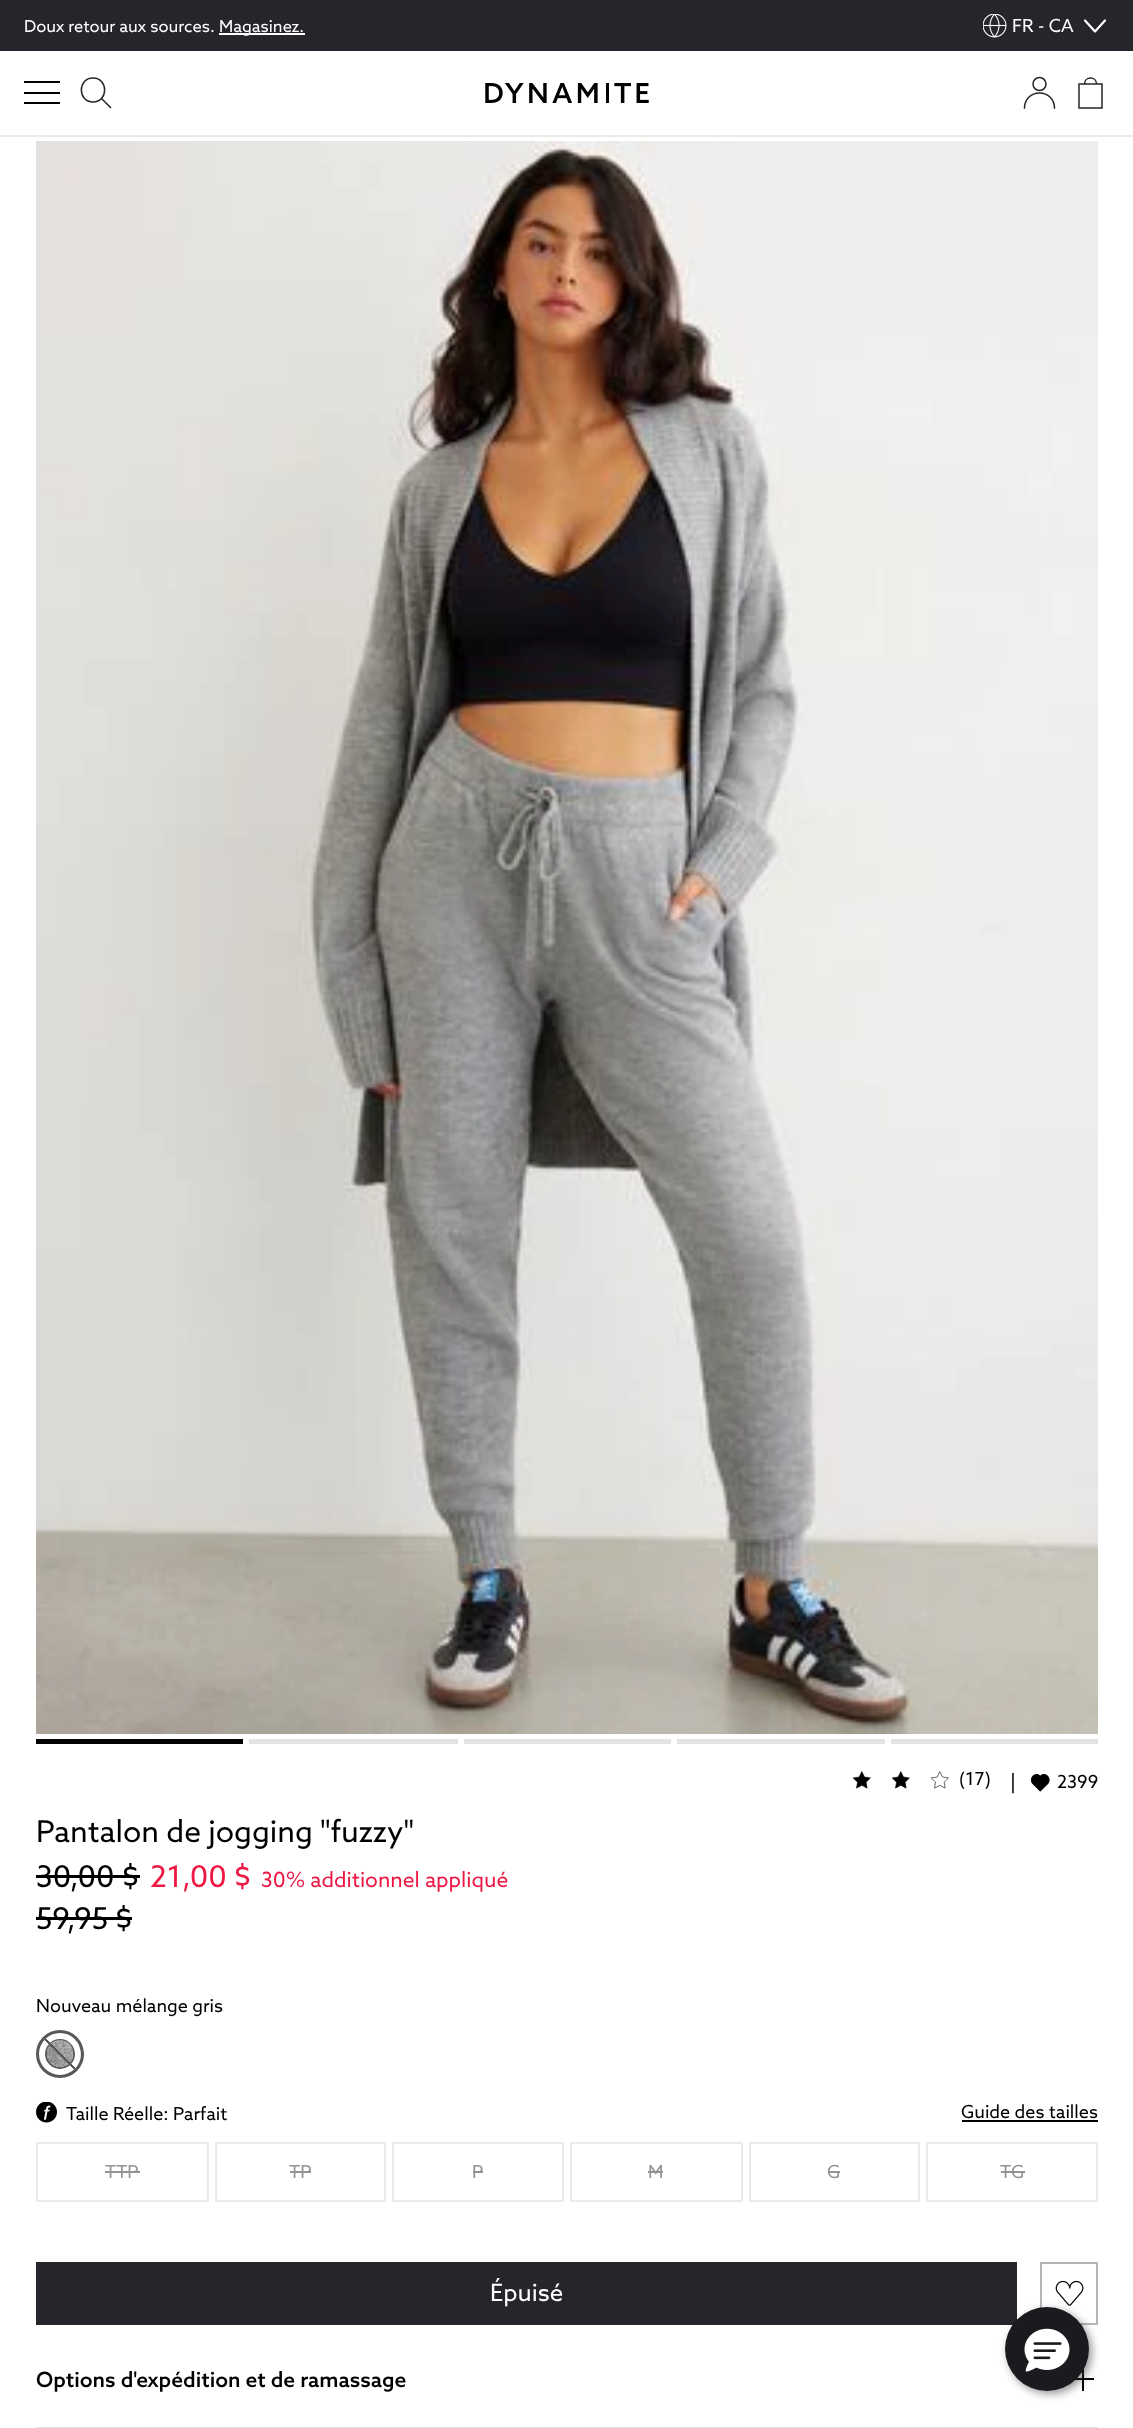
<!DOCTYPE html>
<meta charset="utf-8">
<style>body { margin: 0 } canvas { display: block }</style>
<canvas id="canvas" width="1133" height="2428"></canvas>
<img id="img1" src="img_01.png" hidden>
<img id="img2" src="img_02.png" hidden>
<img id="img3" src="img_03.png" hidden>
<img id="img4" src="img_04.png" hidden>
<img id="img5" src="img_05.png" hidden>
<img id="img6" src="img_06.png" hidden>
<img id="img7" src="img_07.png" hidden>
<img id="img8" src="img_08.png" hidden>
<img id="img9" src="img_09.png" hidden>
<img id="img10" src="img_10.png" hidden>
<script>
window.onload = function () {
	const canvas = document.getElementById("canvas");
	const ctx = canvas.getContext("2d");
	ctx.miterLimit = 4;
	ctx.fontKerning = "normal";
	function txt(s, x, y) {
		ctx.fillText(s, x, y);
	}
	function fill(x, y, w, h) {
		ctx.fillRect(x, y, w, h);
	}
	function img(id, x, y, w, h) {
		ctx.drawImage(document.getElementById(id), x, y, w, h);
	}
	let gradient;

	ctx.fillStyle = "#FFFFFF";
	fill(0, 0, 1133, 2428);
	ctx.fillStyle = "#25252B";
	fill(0, 0, 1133, 51);
	ctx.fillStyle = "#FFFFFF";
	fill(219, 33, 86, 2);
	img("img1", 983, 14, 24, 24);
	ctx.beginPath();
	ctx.moveTo(1085, 20.5);
	ctx.lineTo(1095, 31.5);
	ctx.lineTo(1105, 20.5);
	ctx.strokeStyle = "#FFFFFF";
	ctx.lineWidth = 2.2;
	ctx.lineCap = "round";
	ctx.lineJoin = "round";
	ctx.stroke();
	ctx.fillStyle = "#ECE9E9";
	fill(0, 135, 1133, 2);
	ctx.fillStyle = "#000000";
	fill(24, 92, 36, 2);
	fill(24, 81, 36, 2);
	fill(24, 102, 36, 2);
	ctx.beginPath();
	ctx.moveTo(110.5, 107.5);
	ctx.lineTo(102, 99);
	ctx.moveTo(93, 102);
	ctx.bezierCurveTo(108.5, 102, 108.5, 78, 93, 78);
	ctx.bezierCurveTo(77.5, 78, 77.5, 102, 93, 102);
	ctx.closePath();
	ctx.strokeStyle = "#25252B";
	ctx.lineWidth = 1.5;
	ctx.lineCap = "square";
	ctx.lineJoin = "miter";
	ctx.stroke();
	img("img2", 485, 83, 164, 20);
	ctx.beginPath();
	ctx.moveTo(1024.5, 108);
	ctx.bezierCurveTo(1024.5, 99.5, 1031, 93, 1039.5, 93);
	ctx.bezierCurveTo(1048, 93, 1054.5, 99.5, 1054.5, 108);
	ctx.stroke();
	ctx.beginPath();
	ctx.arc(1039.5, 84, 6.5, 0, Math.PI * 2);
	ctx.stroke();
	ctx.beginPath();
	ctx.moveTo(1096.5, 84);
	ctx.lineTo(1102, 84);
	ctx.lineTo(1102, 108);
	ctx.lineTo(1079, 108);
	ctx.lineTo(1079, 84);
	ctx.lineTo(1084.5, 84);
	ctx.moveTo(1096.5, 84);
	ctx.bezierCurveTo(1096.5, 76, 1084.5, 76, 1084.5, 84);
	ctx.moveTo(1096.5, 84);
	ctx.lineTo(1084.5, 84);
	ctx.stroke();
	img("img3", 36, 141, 1062, 1593);
	fill(36, 1739, 207, 5);
	ctx.fillStyle = "#E3E3E3";
	fill(249, 1739, 209, 5);
	fill(464, 1739, 207, 5);
	fill(677, 1739, 208, 5);
	fill(891, 1739, 207, 5);
	img("img4", 853, 1771, 18, 18);
	img("img4", 892, 1771, 18, 18);
	img("img5", 931, 1771, 18, 18);
	img("img6", 1030, 1774, 20, 18);
	ctx.fillStyle = "#000000";
	fill(36, 1875, 104, 3);
	fill(36, 1917, 96, 3);
	ctx.beginPath();
	ctx.arc(60, 2054, 22.5, 0, Math.PI * 2);
	ctx.strokeStyle = "#585858";
	ctx.lineWidth = 3;
	ctx.stroke();
	ctx.beginPath();
	ctx.arc(60, 2054, 14, 0, Math.PI * 2);
	ctx.lineWidth = 2;
	ctx.stroke();
	img("img7", 46, 2040, 28, 27);
	gradient = ctx.createLinearGradient(39, 2075, 81, 2033);
	gradient.addColorStop(0.48, "rgba(88, 88, 88, 0)");
	gradient.addColorStop(0.48, "#585858");
	gradient.addColorStop(0.52, "#585858");
	gradient.addColorStop(0.52, "rgba(88, 88, 88, 0)");
	gradient.addColorStop(1, "rgba(0, 0, 0, 0)");
	ctx.fillStyle = gradient;
	ctx.beginPath();
	ctx.arc(60, 2054, 21, 0, Math.PI * 2);
	ctx.fill();
	img("img8", 36, 2102, 21, 21);
	ctx.strokeStyle = "#ECE9E9";
	ctx.strokeRect(37, 2143, 171, 58);
	ctx.fillStyle = "#939393";
	fill(105, 2171, 35, 2);
	ctx.strokeRect(216, 2143, 169, 58);
	fill(290, 2171, 21, 2);
	ctx.strokeRect(393, 2143, 170, 58);
	fill(473, 2171, 10, 2);
	ctx.strokeRect(571, 2143, 171, 58);
	fill(648, 2171, 15, 2);
	ctx.strokeRect(750, 2143, 169, 58);
	fill(828, 2171, 12, 2);
	ctx.strokeRect(927, 2143, 170, 58);
	fill(1001, 2171, 24, 2);
	ctx.fillStyle = "#000000";
	fill(962, 2120, 136, 2);
	ctx.fillStyle = "#25252B";
	fill(36, 2262, 981, 63);
	ctx.strokeStyle = "#B5B5B5";
	ctx.strokeRect(1041, 2263, 56, 61);
	img("img9", 1055, 2280, 29, 26);
	ctx.fillStyle = "#000000";
	fill(1082, 2367, 2, 24);
	fill(1070, 2378, 24, 2);
	ctx.fillStyle = "#E3E3E3";
	fill(36, 2427, 1062, 1);
	ctx.fillStyle = "rgba(45, 45, 45, 0.5)";
	ctx.filter = "blur(4px)";
	ctx.beginPath();
	ctx.roundRect(1008, 2310, 84, 84, 42);
	ctx.fill();
	ctx.filter = "none";
	ctx.fillStyle = "#1A1B1E";
	ctx.beginPath();
	ctx.arc(1047, 2349, 42, 0, Math.PI * 2);
	ctx.fill();
	img("img10", 1024, 2328, 46, 44);
	ctx.font = "16.5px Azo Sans";
	ctx.fillStyle = "#FFFFFF";
	txt("Doux retour aux sources.", 24, 32);
	txt("Magasinez.", 219, 32);
	ctx.font = "18px Azo Sans";
	txt("FR - CA", 1012, 32);
	ctx.fillStyle = "#000000";
	txt("(17)", 959, 1785);
	ctx.font = "24px Roboto";
	ctx.fillStyle = "#242424";
	txt("|", 1010, 1790);
	ctx.font = "18px Azo Sans";
	ctx.fillStyle = "#000000";
	txt("2399", 1057, 1788);
	ctx.font = "30px Azo Sans";
	txt("Pantalon de jogging \"fuzzy\"", 36, 1842);
	txt("30,00 $", 36, 1887);
	ctx.fillStyle = "#ED1944";
	txt("21,00 $", 150, 1887);
	ctx.fillStyle = "#000000";
	txt("59,95 $", 36, 1929);
	ctx.font = "21px Azo Sans";
	ctx.fillStyle = "#ED1944";
	txt("30% additionnel appliqué", 261, 1887);
	ctx.font = "18px Azo Sans";
	ctx.fillStyle = "#000000";
	txt("Nouveau mélange gris", 36, 2012);
	txt("Taille Réelle: Parfait", 66, 2120);
	ctx.fillStyle = "#939393";
	txt("TTP", 105, 2178);
	txt("TP", 289, 2178);
	txt("P", 472, 2178);
	txt("M", 648, 2178);
	txt("G", 827, 2178);
	txt("TG", 1000, 2178);
	ctx.fillStyle = "#000000";
	txt("Guide des tailles", 961, 2118);
	ctx.font = "24px Azo Sans";
	ctx.fillStyle = "#FFFFFF";
	txt("Épuisé", 490, 2301);
	ctx.font = "500 21px Azo Sans";
	ctx.fillStyle = "#000000";
	txt("Options d'expédition et de ramassage", 36, 2387);
};
</script>
